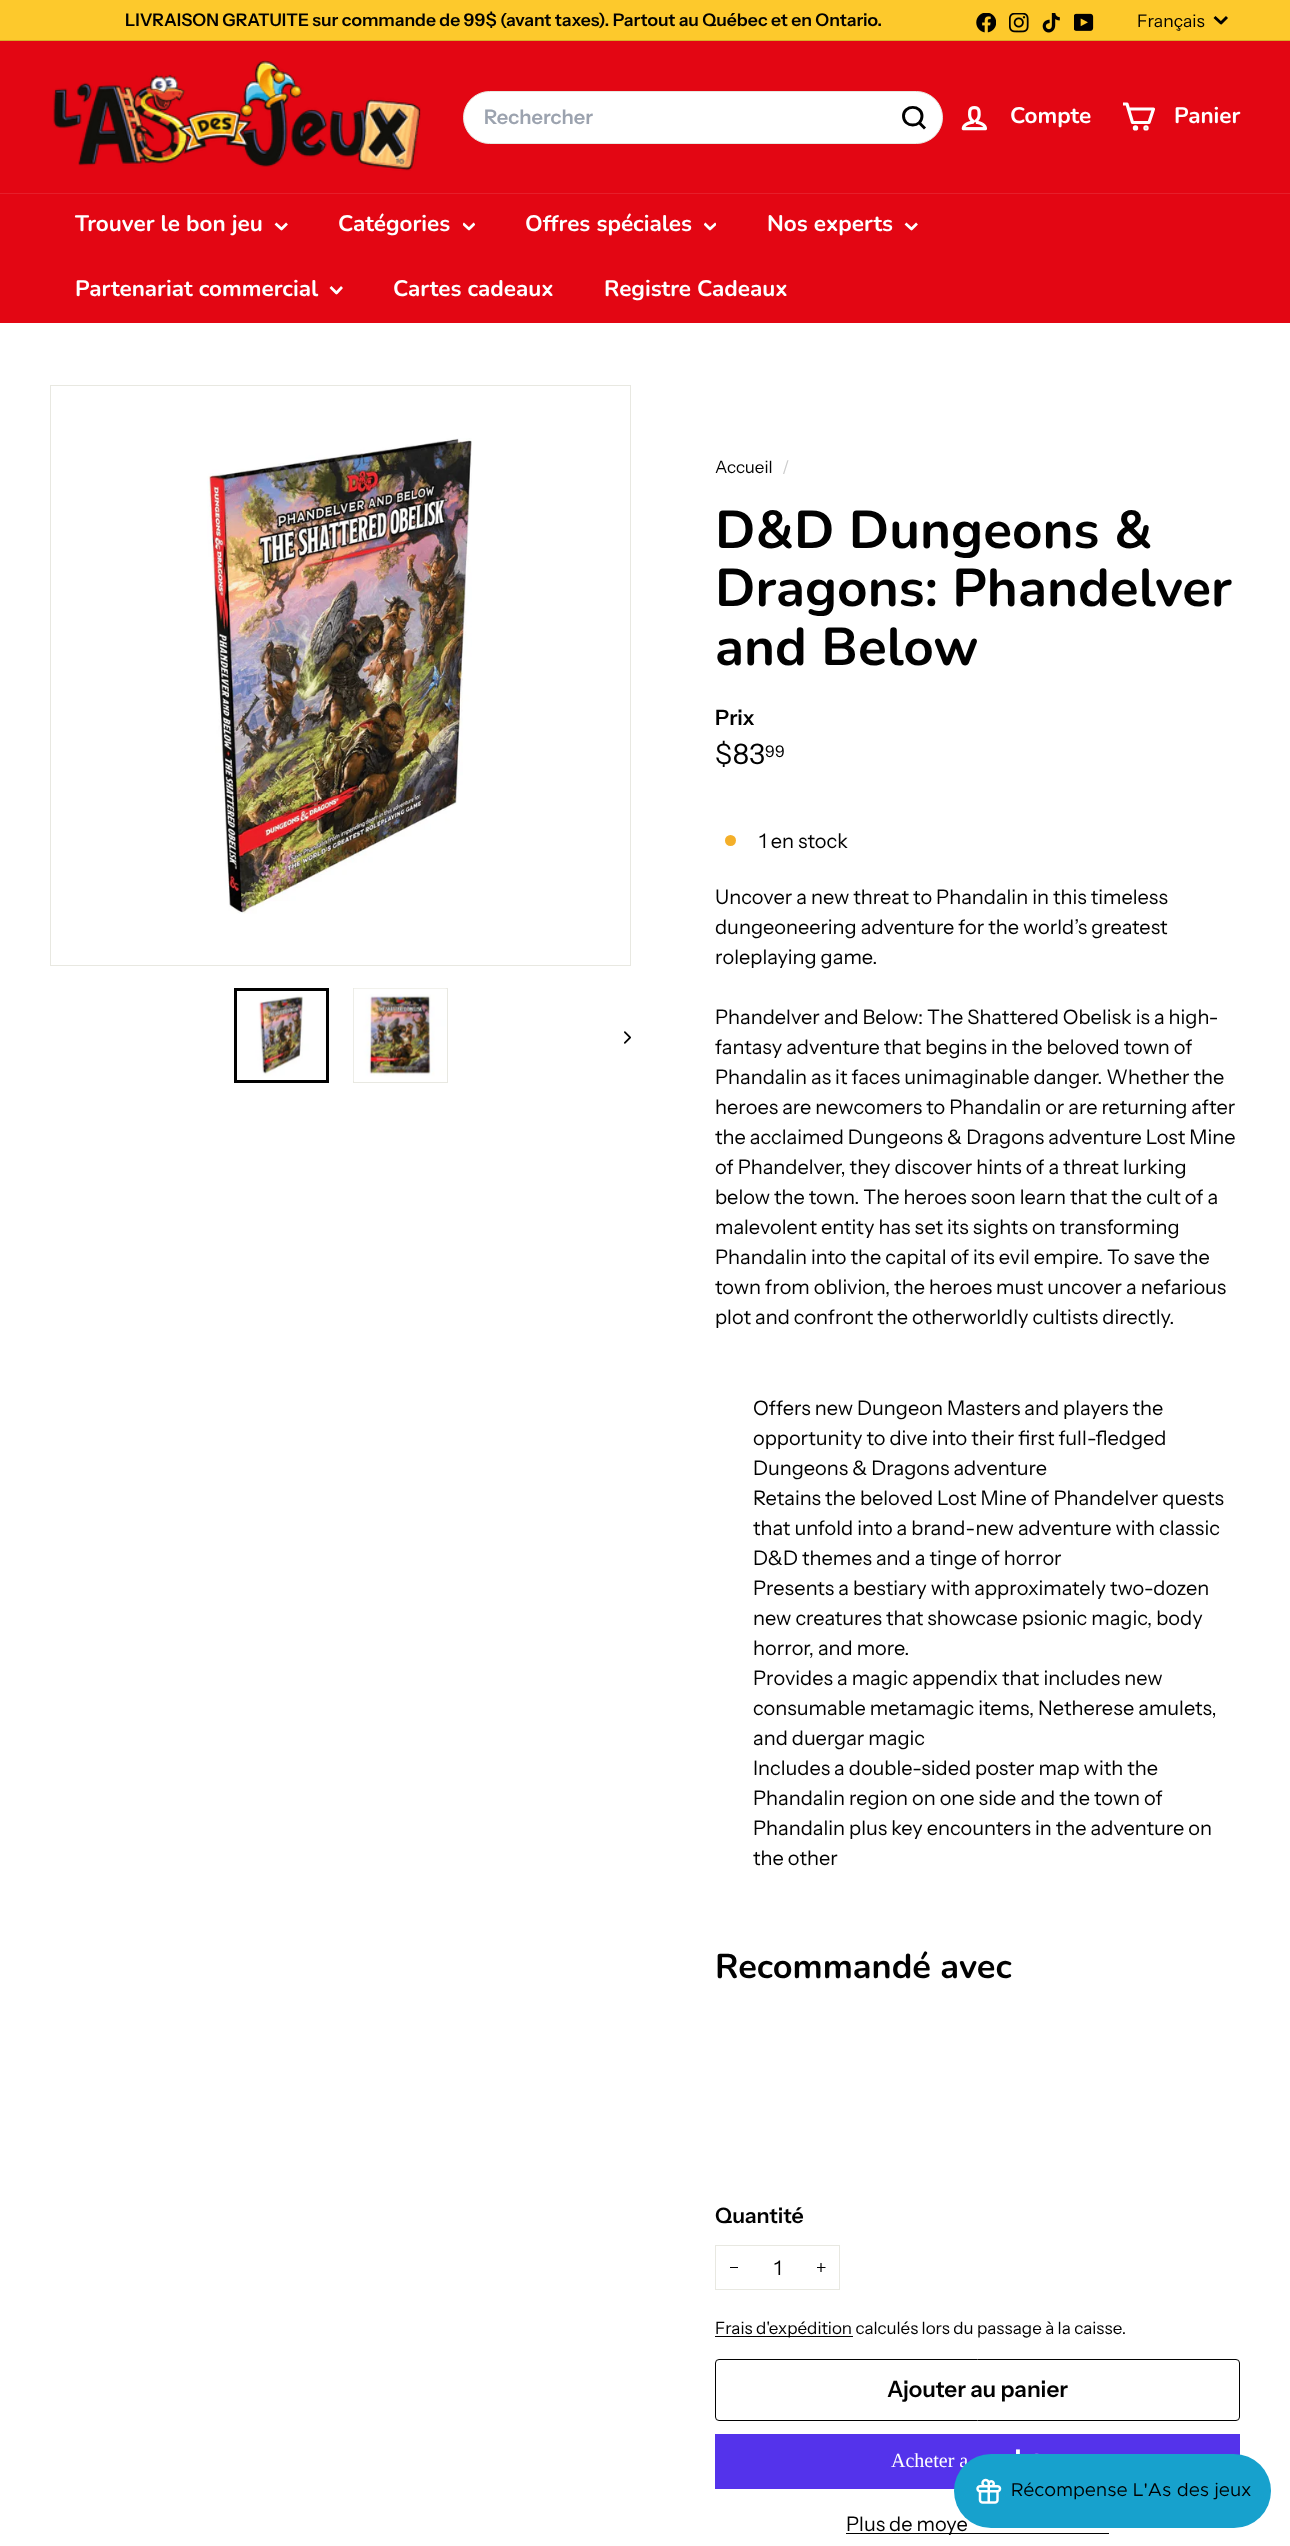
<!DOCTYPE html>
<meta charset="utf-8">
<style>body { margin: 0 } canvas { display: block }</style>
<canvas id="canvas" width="1290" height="2546"></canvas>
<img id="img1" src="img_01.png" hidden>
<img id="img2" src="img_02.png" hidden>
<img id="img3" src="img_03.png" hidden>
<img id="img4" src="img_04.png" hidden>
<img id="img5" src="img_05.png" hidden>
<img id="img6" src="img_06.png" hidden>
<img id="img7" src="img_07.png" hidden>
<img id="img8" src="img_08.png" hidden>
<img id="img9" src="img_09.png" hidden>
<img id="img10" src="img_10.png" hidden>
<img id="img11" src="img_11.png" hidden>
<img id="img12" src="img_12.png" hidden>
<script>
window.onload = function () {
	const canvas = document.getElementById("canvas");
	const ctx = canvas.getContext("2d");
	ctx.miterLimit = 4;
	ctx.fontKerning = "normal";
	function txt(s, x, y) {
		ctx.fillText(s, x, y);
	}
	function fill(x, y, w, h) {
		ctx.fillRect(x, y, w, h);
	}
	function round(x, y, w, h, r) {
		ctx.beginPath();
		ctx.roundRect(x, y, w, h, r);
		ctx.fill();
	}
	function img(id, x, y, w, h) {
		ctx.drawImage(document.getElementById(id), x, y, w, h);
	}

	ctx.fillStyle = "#FFFFFF";
	fill(0, 0, 1290, 2546);
	ctx.fillStyle = "#FDC92C";
	fill(0, 0, 1290, 40);
	img("img1", 976, 13, 20, 20);
	img("img2", 1009, 13, 20, 20);
	img("img3", 1042, 13, 18, 20);
	img("img4", 1074, 13, 20, 18);
	ctx.beginPath();
	ctx.moveTo(1214.5, 17);
	ctx.lineTo(1221, 23);
	ctx.lineTo(1227, 17);
	ctx.strokeStyle = "#010101";
	ctx.lineWidth = 2.9;
	ctx.lineJoin = "round";
	ctx.stroke();
	ctx.fillStyle = "#D7AB26";
	fill(0, 40, 1290, 1);
	ctx.fillStyle = "#E30613";
	fill(0, 41, 1290, 152);
	img("img5", 53, 60, 368, 111);
	ctx.fillStyle = "#FFFFFF";
	ctx.beginPath();
	ctx.roundRect(463.5, 91.5, 479, 52, 26);
	ctx.fill();
	ctx.strokeStyle = "#E8E8E1";
	ctx.lineWidth = 1;
	ctx.lineJoin = "miter";
	ctx.stroke();
	ctx.beginPath();
	ctx.moveTo(922, 116);
	ctx.bezierCurveTo(922, 128, 903.5, 128, 903.5, 116);
	ctx.bezierCurveTo(903.5, 104.5, 922, 104.5, 922, 116);
	ctx.moveTo(925, 128.5);
	ctx.lineTo(919, 122.5);
	ctx.strokeStyle = "#000000";
	ctx.lineWidth = 2.9;
	ctx.lineJoin = "round";
	ctx.stroke();
	img("img6", 961, 106, 26, 25);
	ctx.beginPath();
	ctx.moveTo(1128.5, 109);
	ctx.lineTo(1153.5, 109);
	ctx.lineTo(1149, 122.5);
	ctx.lineTo(1132.5, 122.5);
	ctx.lineTo(1127, 104);
	ctx.lineTo(1123, 104);
	ctx.strokeStyle = "#FFFFFF";
	ctx.lineWidth = 3.2;
	ctx.stroke();
	ctx.beginPath();
	ctx.arc(1135.5, 127.9, 1.1, 0, Math.PI * 2);
	ctx.fill();
	ctx.stroke();
	ctx.beginPath();
	ctx.arc(1146, 127.9, 1.1, 0, Math.PI * 2);
	ctx.stroke();
	ctx.fillStyle = "#E30613";
	fill(0, 194, 1290, 129);
	ctx.fillStyle = "#E61F2B";
	fill(0, 193, 1290, 1);
	ctx.beginPath();
	ctx.moveTo(275.5, 223.5);
	ctx.lineTo(281.5, 229);
	ctx.lineTo(287, 223.5);
	ctx.lineWidth = 2.7;
	ctx.stroke();
	ctx.save();
	ctx.beginPath();
	ctx.rect(463, 220, 12, 13);
	ctx.clip();
	ctx.beginPath();
	ctx.moveTo(463, 223.5);
	ctx.lineTo(469, 229);
	ctx.lineTo(474.5, 223.5);
	ctx.stroke();
	ctx.restore();
	ctx.save();
	ctx.beginPath();
	ctx.rect(704, 220, 12, 13);
	ctx.clip();
	ctx.beginPath();
	ctx.moveTo(704.5, 223.5);
	ctx.lineTo(710, 229);
	ctx.lineTo(716, 223.5);
	ctx.stroke();
	ctx.restore();
	ctx.beginPath();
	ctx.moveTo(905.5, 223.5);
	ctx.lineTo(911.5, 229);
	ctx.lineTo(917, 223.5);
	ctx.stroke();
	ctx.beginPath();
	ctx.moveTo(330.5, 287);
	ctx.lineTo(336.5, 293);
	ctx.lineTo(342, 287);
	ctx.stroke();
	ctx.strokeStyle = "#E8E8E1";
	ctx.lineWidth = 1;
	ctx.lineJoin = "miter";
	ctx.strokeRect(50.5, 385.5, 580, 580);
	img("img7", 207, 438, 265, 476);
	img("img8", 237, 991, 89, 89);
	ctx.strokeStyle = "#010101";
	ctx.lineWidth = 3;
	ctx.strokeRect(235.5, 989.5, 92, 92);
	ctx.strokeStyle = "#E8E8E1";
	ctx.lineWidth = 1;
	ctx.strokeRect(353.5, 988.5, 94, 94);
	img("img9", 353, 988, 94, 93);
	img("img10", 624, 1031, 7, 13);
	ctx.fillStyle = "#F4AF29";
	ctx.beginPath();
	ctx.arc(730.5, 840.5, 5.5, 0, Math.PI * 2);
	ctx.fill();
	ctx.strokeRect(715.5, 2245.5, 124, 44);
	ctx.fillStyle = "#010101";
	fill(730, 2267, 8, 1);
	ctx.beginPath();
	ctx.moveTo(821, 2263);
	ctx.lineTo(821, 2272);
	ctx.moveTo(825.5, 2267.5);
	ctx.lineTo(817, 2267.5);
	ctx.strokeStyle = "#010101";
	ctx.lineWidth = 1.2;
	ctx.lineJoin = "round";
	ctx.stroke();
	fill(715, 2336, 138, 1);
	ctx.beginPath();
	ctx.roundRect(715.5, 2359.5, 524, 61, 3.5);
	ctx.lineWidth = 1;
	ctx.lineJoin = "miter";
	ctx.stroke();
	ctx.fillStyle = "#5433EB";
	fill(715, 2434, 525, 55);
	img("img11", 1016, 2449, 23, 5);
	ctx.fillStyle = "#010101";
	fill(846, 2533, 263, 1);
	ctx.font = "600 17.5px Instrument Sans";
	txt("LIVRAISON GRATUITE sur commande de 99$ (avant taxes). Partout au Québec et en Ontario.", 125, 26);
	ctx.font = "17.5px Instrument Sans";
	txt("Français", 1137, 27);
	ctx.font = "600 20px Instrument Sans";
	ctx.fillStyle = "#9CA3AF";
	txt("Rechercher", 484, 124);
	ctx.font = "bold 22.5px Nunito";
	ctx.fillStyle = "#FFFFFF";
	txt("Compte", 1010, 123);
	txt("Panier", 1174, 123);
	txt("Trouver le bon jeu", 75, 231);
	txt("Catégories", 338, 231);
	txt("Offres spéciales", 525, 231);
	txt("Nos experts", 767, 231);
	txt("Partenariat commercial", 75, 296);
	txt("Cartes cadeaux", 393, 296);
	txt("Registre Cadeaux", 604, 296);
	ctx.font = "17px Instrument Sans";
	ctx.fillStyle = "#010101";
	txt("Accueil", 715, 473);
	ctx.fillStyle = "#CCCCCC";
	txt("/", 782, 473);
	ctx.font = "bold 53.1px Nunito";
	ctx.fillStyle = "#010101";
	txt("D&D Dungeons &", 715, 548);
	txt("Dragons: Phandelver", 715, 606);
	txt("and Below", 715, 665);
	ctx.font = "600 21.25px Instrument Sans";
	txt("Prix", 715, 725);
	ctx.font = "28px Instrument Sans";
	txt("$83", 715, 764);
	ctx.font = "16px Instrument Sans";
	txt("99", 765, 757);
	ctx.font = "20px Instrument Sans";
	txt("1 en stock", 759, 848);
	txt("Uncover a new threat to Phandalin in this timeless", 715, 904);
	txt("dungeoneering adventure for the world’s greatest", 715, 934);
	txt("roleplaying game.", 715, 964);
	txt("Phandelver and Below: The Shattered Obelisk is a high-", 715, 1024);
	txt("fantasy adventure that begins in the beloved town of", 715, 1054);
	txt("Phandalin as it faces unimaginable danger. Whether the", 715, 1084);
	txt("heroes are newcomers to Phandalin or are returning after", 715, 1114);
	txt("the acclaimed Dungeons & Dragons adventure Lost Mine", 715, 1144);
	txt("of Phandelver, they discover hints of a threat lurking", 715, 1174);
	txt("below the town. The heroes soon learn that the cult of a", 715, 1204);
	txt("malevolent entity has set its sights on transforming", 715, 1234);
	txt("Phandalin into the capital of its evil empire. To save the", 715, 1264);
	txt("town from oblivion, the heroes must uncover a nefarious", 715, 1294);
	txt("plot and confront the otherworldly cultists directly.", 715, 1324);
	txt("Offers new Dungeon Masters and players the", 753, 1415);
	txt("opportunity to dive into their first full-fledged", 753, 1445);
	txt("Dungeons & Dragons adventure", 753, 1475);
	txt("Retains the beloved Lost Mine of Phandelver quests", 753, 1505);
	txt("that unfold into a brand-new adventure with classic", 753, 1535);
	txt("D&D themes and a tinge of horror", 753, 1565);
	txt("Presents a bestiary with approximately two-dozen", 753, 1595);
	txt("new creatures that showcase psionic magic, body", 753, 1625);
	txt("horror, and more.", 753, 1655);
	txt("Provides a magic appendix that includes new", 753, 1685);
	txt("consumable metamagic items, Netherese amulets,", 753, 1715);
	txt("and duergar magic", 753, 1745);
	txt("Includes a double-sided poster map with the", 753, 1775);
	txt("Phandalin region on one side and the town of", 753, 1805);
	txt("Phandalin plus key encounters in the adventure on", 753, 1835);
	txt("the other", 753, 1865);
	ctx.font = "bold 34.4px Nunito";
	txt("Recommandé avec", 715, 1978);
	ctx.font = "600 21.25px Instrument Sans";
	txt("Quantité", 715, 2223);
	ctx.font = "20px Instrument Sans";
	txt("1", 774, 2275);
	ctx.font = "17px Instrument Sans";
	txt("Frais d'expédition calculés lors du passage à la caisse.", 715, 2334);
	ctx.font = "600 22.5px Instrument Sans";
	txt("Ajouter au panier", 887, 2397);
	ctx.font = "20px Liberation Serif";
	ctx.fillStyle = "#FFFFFF";
	txt("Acheter a", 891, 2467);
	ctx.font = "20px Instrument Sans";
	ctx.fillStyle = "#010101";
	txt("Plus de moye", 846, 2531);
	ctx.fillStyle = "#17A1CD";
	round(954, 2454, 317, 74, 37);
	img("img12", 976, 2478, 26, 26);
	ctx.font = "18.75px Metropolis";
	ctx.fillStyle = "#010101";
	txt("Récompense L'As des jeux", 1011, 2496);
};
</script>
